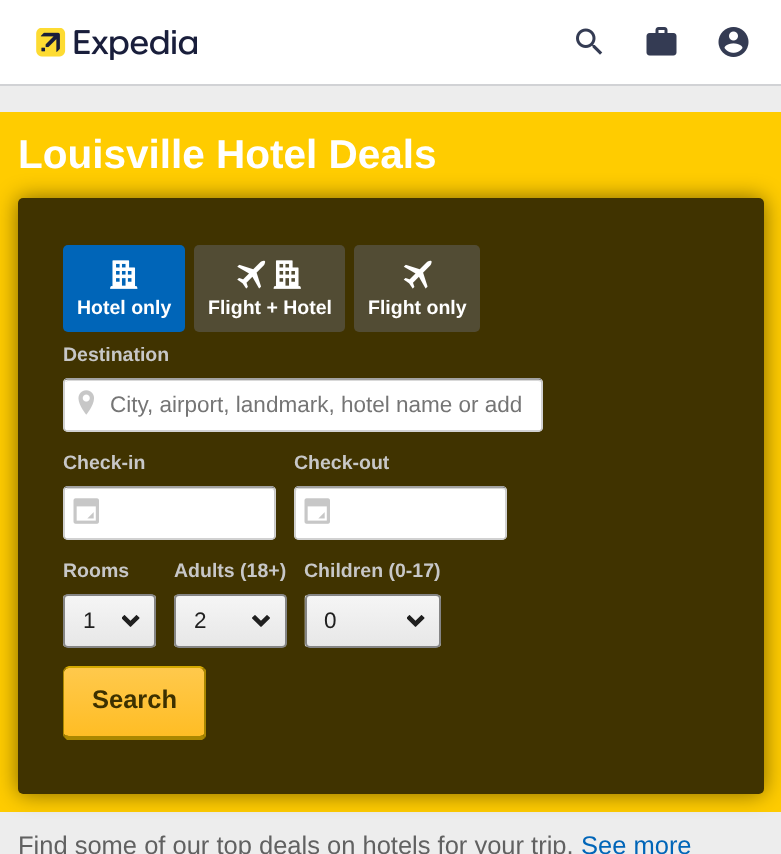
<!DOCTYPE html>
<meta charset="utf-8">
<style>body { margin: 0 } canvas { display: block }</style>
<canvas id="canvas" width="781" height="854"></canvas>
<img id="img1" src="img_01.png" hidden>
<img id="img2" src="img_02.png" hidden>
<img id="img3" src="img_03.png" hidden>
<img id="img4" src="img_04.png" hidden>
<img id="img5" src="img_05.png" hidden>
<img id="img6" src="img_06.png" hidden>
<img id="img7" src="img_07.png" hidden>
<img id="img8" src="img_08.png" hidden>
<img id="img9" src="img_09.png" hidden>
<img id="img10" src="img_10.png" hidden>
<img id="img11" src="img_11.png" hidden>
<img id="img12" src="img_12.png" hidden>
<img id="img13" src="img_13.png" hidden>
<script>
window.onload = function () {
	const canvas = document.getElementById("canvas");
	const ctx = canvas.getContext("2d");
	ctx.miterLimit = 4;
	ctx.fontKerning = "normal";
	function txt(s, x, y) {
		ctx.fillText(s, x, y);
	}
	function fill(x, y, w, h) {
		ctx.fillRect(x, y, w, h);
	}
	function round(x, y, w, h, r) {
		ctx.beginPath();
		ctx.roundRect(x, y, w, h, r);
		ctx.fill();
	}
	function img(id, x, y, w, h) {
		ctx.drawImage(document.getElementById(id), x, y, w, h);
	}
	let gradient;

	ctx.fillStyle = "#EDEDED";
	fill(0, 0, 781, 854);
	ctx.fillStyle = "#D1D2D5";
	ctx.beginPath();
	ctx.moveTo(0, 84);
	ctx.lineTo(0, 86);
	ctx.lineTo(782, 86);
	ctx.lineTo(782, 2);
	ctx.lineTo(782, 84);
	ctx.closePath();
	ctx.fill();
	ctx.fillStyle = "#FFFFFF";
	fill(0, 0, 781, 84);
	img("img1", 36, 28, 161, 32);
	img("img2", 576, 28, 27, 27);
	img("img3", 646, 27, 31, 29);
	img("img4", 718, 27, 31, 30);
	ctx.fillStyle = "#FFCC00";
	fill(0, 112, 781, 700);
	ctx.save();
	ctx.beginPath();
	ctx.moveTo(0, 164);
	ctx.lineTo(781, 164);
	ctx.lineTo(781, 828);
	ctx.lineTo(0, 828);
	ctx.closePath();
	ctx.moveTo(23, 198);
	ctx.lineTo(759, 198);
	ctx.bezierCurveTo(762, 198, 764, 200, 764, 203);
	ctx.lineTo(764, 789);
	ctx.bezierCurveTo(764, 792, 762, 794, 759, 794);
	ctx.lineTo(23, 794);
	ctx.bezierCurveTo(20, 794, 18, 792, 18, 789);
	ctx.lineTo(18, 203);
	ctx.bezierCurveTo(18, 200, 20, 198, 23, 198);
	ctx.closePath();
	ctx.clip("evenodd");
	ctx.fillStyle = "rgba(0, 0, 0, 0.5)";
	ctx.filter = "blur(11px)";
	ctx.beginPath();
	ctx.roundRect(18, 198, 746, 596, 5);
	ctx.fill();
	ctx.filter = "none";
	ctx.restore();
	ctx.fillStyle = "rgba(0, 0, 0, 0.75)";
	round(18, 198, 746, 596, 5);
	ctx.fillStyle = "#0065B8";
	round(63, 245, 122, 87, 5);
	img("img5", 110, 260, 28, 29);
	ctx.fillStyle = "#524C34";
	round(194, 245, 151, 87, 5);
	img("img6", 237, 260, 29, 29);
	img("img7", 273, 260, 28, 29);
	round(354, 245, 126, 87, 5);
	img("img8", 403, 260, 29, 29);
	ctx.fillStyle = "#FFFFFF";
	round(63, 378, 480, 54, 5);
	ctx.fillStyle = "#F2F2F2";
	ctx.beginPath();
	ctx.moveTo(68, 381);
	ctx.lineTo(538, 381);
	ctx.bezierCurveTo(540, 381, 542, 382, 542, 384);
	ctx.lineTo(542, 383);
	ctx.bezierCurveTo(542, 381, 541, 380, 539, 380);
	ctx.lineTo(68, 380);
	ctx.bezierCurveTo(67, 380, 66, 381, 65, 382);
	ctx.closePath();
	ctx.fill();
	ctx.fillStyle = "rgba(0, 0, 0, 0.1)";
	ctx.beginPath();
	ctx.moveTo(68, 381);
	ctx.lineTo(538, 381);
	ctx.bezierCurveTo(540, 381, 542, 382, 542, 384);
	ctx.lineTo(542, 383);
	ctx.bezierCurveTo(542, 381, 541, 380, 539, 380);
	ctx.lineTo(68, 380);
	ctx.bezierCurveTo(67, 380, 66, 381, 65, 382);
	ctx.closePath();
	ctx.fill();
	ctx.beginPath();
	ctx.moveTo(65, 380);
	ctx.bezierCurveTo(65.5, 379, 66.5, 379, 67.5, 379);
	ctx.lineTo(538.5, 379);
	ctx.bezierCurveTo(539.5, 379, 540.5, 379, 541, 380);
	ctx.strokeStyle = "#858585";
	ctx.lineWidth = 1.5;
	ctx.stroke();
	ctx.beginPath();
	ctx.moveTo(541, 380);
	ctx.bezierCurveTo(542, 380.5, 542, 381.5, 542, 382.5);
	ctx.lineTo(542, 427.5);
	ctx.bezierCurveTo(542, 428.5, 542, 429.5, 541, 430);
	ctx.bezierCurveTo(540.5, 431, 539.5, 431, 538.5, 431);
	ctx.lineTo(67.5, 431);
	ctx.bezierCurveTo(66.5, 431, 65.5, 431, 65, 430);
	ctx.bezierCurveTo(64, 429.5, 64, 428.5, 64, 427.5);
	ctx.lineTo(64, 382.5);
	ctx.bezierCurveTo(64, 381.5, 64, 380.5, 65, 380);
	ctx.strokeStyle = "#C2C2C2";
	ctx.stroke();
	img("img9", 78, 390, 16, 25);
	ctx.fillStyle = "#FFFFFF";
	round(63, 486, 213, 54, 5);
	ctx.fillStyle = "#F2F2F2";
	ctx.beginPath();
	ctx.moveTo(68, 489);
	ctx.lineTo(272, 489);
	ctx.bezierCurveTo(273, 489, 274, 490, 274, 492);
	ctx.lineTo(274, 538);
	ctx.bezierCurveTo(275, 538, 275, 537, 275, 536);
	ctx.lineTo(275, 491);
	ctx.bezierCurveTo(275, 489, 274, 488, 272, 488);
	ctx.lineTo(68, 488);
	ctx.bezierCurveTo(67, 488, 66, 489, 65, 490);
	ctx.closePath();
	ctx.fill();
	ctx.fillStyle = "rgba(0, 0, 0, 0.1)";
	ctx.beginPath();
	ctx.moveTo(68, 489);
	ctx.lineTo(272, 489);
	ctx.bezierCurveTo(273, 489, 274, 490, 274, 492);
	ctx.lineTo(274, 538);
	ctx.bezierCurveTo(275, 538, 275, 537, 275, 536);
	ctx.lineTo(275, 491);
	ctx.bezierCurveTo(275, 489, 274, 488, 272, 488);
	ctx.lineTo(68, 488);
	ctx.bezierCurveTo(67, 488, 66, 489, 65, 490);
	ctx.closePath();
	ctx.fill();
	ctx.beginPath();
	ctx.moveTo(65, 488);
	ctx.bezierCurveTo(65.5, 487, 66.5, 487, 67.5, 487);
	ctx.lineTo(271.5, 487);
	ctx.bezierCurveTo(272.5, 487, 273.5, 487, 274, 488);
	ctx.strokeStyle = "#858585";
	ctx.stroke();
	ctx.beginPath();
	ctx.moveTo(274, 488);
	ctx.bezierCurveTo(275, 488.5, 275, 489.5, 275, 490.5);
	ctx.lineTo(275, 535.5);
	ctx.bezierCurveTo(275, 536.5, 275, 537.5, 274, 538);
	ctx.bezierCurveTo(273.5, 539, 272.5, 539, 271.5, 539);
	ctx.lineTo(67.5, 539);
	ctx.bezierCurveTo(66.5, 539, 65.5, 539, 65, 538);
	ctx.bezierCurveTo(64, 537.5, 64, 536.5, 64, 535.5);
	ctx.lineTo(64, 490.5);
	ctx.bezierCurveTo(64, 489.5, 64, 488.5, 65, 488);
	ctx.strokeStyle = "#C2C2C2";
	ctx.stroke();
	img("img10", 73, 498, 26, 26);
	ctx.fillStyle = "#FFFFFF";
	round(294, 486, 213, 54, 5);
	ctx.fillStyle = "#F2F2F2";
	ctx.beginPath();
	ctx.moveTo(298, 489);
	ctx.lineTo(502, 489);
	ctx.bezierCurveTo(504, 489, 506, 490, 506, 492);
	ctx.lineTo(506, 491);
	ctx.bezierCurveTo(506, 489, 505, 488, 503, 488);
	ctx.lineTo(299, 488);
	ctx.bezierCurveTo(297, 488, 296, 489, 296, 491);
	ctx.lineTo(296, 492);
	ctx.bezierCurveTo(296, 490, 297, 489, 298, 489);
	ctx.closePath();
	ctx.fill();
	ctx.fillStyle = "rgba(0, 0, 0, 0.1)";
	ctx.beginPath();
	ctx.moveTo(298, 489);
	ctx.lineTo(502, 489);
	ctx.bezierCurveTo(504, 489, 506, 490, 506, 492);
	ctx.lineTo(506, 491);
	ctx.bezierCurveTo(506, 489, 505, 488, 503, 488);
	ctx.lineTo(299, 488);
	ctx.bezierCurveTo(297, 488, 296, 489, 296, 491);
	ctx.lineTo(296, 492);
	ctx.bezierCurveTo(296, 490, 297, 489, 298, 489);
	ctx.closePath();
	ctx.fill();
	ctx.beginPath();
	ctx.moveTo(296, 488);
	ctx.bezierCurveTo(296.5, 487, 297.5, 487, 298.5, 487);
	ctx.lineTo(502.5, 487);
	ctx.bezierCurveTo(503.5, 487, 504.5, 487, 505, 488);
	ctx.strokeStyle = "#858585";
	ctx.stroke();
	ctx.beginPath();
	ctx.moveTo(505, 488);
	ctx.bezierCurveTo(506, 488.5, 506, 489.5, 506, 490.5);
	ctx.lineTo(506, 535.5);
	ctx.bezierCurveTo(506, 536.5, 506, 537.5, 505, 538);
	ctx.bezierCurveTo(504.5, 539, 503.5, 539, 502.5, 539);
	ctx.lineTo(298.5, 539);
	ctx.bezierCurveTo(297.5, 539, 296.5, 539, 296, 538);
	ctx.bezierCurveTo(295, 537.5, 295, 536.5, 295, 535.5);
	ctx.lineTo(295, 490.5);
	ctx.bezierCurveTo(295, 489.5, 295, 488.5, 296, 488);
	ctx.strokeStyle = "#C2C2C2";
	ctx.stroke();
	img("img10", 304, 498, 26, 26);
	img("img11", 63, 595, 93, 52);
	ctx.beginPath();
	ctx.roundRect(64, 595, 91, 52, 4);
	ctx.strokeStyle = "#858585";
	ctx.lineWidth = 2;
	ctx.stroke();
	img("img12", 174, 595, 113, 52);
	ctx.beginPath();
	ctx.roundRect(175, 595, 111, 52, 4);
	ctx.stroke();
	img("img13", 304, 595, 137, 52);
	ctx.beginPath();
	ctx.roundRect(306, 595, 134, 52, 4);
	ctx.stroke();
	gradient = ctx.createLinearGradient(134, 737, 134, 668);
	gradient.addColorStop(0, "#FFBD24");
	gradient.addColorStop(1, "#FFC94C");
	ctx.fillStyle = gradient;
	ctx.beginPath();
	ctx.moveTo(69, 668);
	ctx.lineTo(200, 668);
	ctx.bezierCurveTo(202, 668, 204, 670, 204, 672);
	ctx.lineTo(204, 734);
	ctx.bezierCurveTo(204, 735, 202, 736, 200, 736);
	ctx.lineTo(69, 736);
	ctx.bezierCurveTo(67, 736, 64, 735, 64, 734);
	ctx.lineTo(64, 672);
	ctx.bezierCurveTo(64, 670, 67, 668, 69, 668);
	ctx.closePath();
	ctx.fill();
	ctx.fillStyle = "#D4A900";
	ctx.beginPath();
	ctx.moveTo(69, 666);
	ctx.bezierCurveTo(68, 666, 66, 667, 65, 668);
	ctx.lineTo(66, 669);
	ctx.lineTo(69, 668);
	ctx.lineTo(200, 668);
	ctx.lineTo(202, 669);
	ctx.lineTo(204, 668);
	ctx.bezierCurveTo(203, 667, 201, 666, 200, 666);
	ctx.closePath();
	ctx.fill();
	ctx.fillStyle = "#AA8700";
	ctx.beginPath();
	ctx.moveTo(206, 736);
	ctx.lineTo(205, 738);
	ctx.lineTo(203, 735);
	ctx.lineTo(204, 734);
	ctx.lineTo(204, 672);
	ctx.bezierCurveTo(204, 671, 203, 670, 202, 669);
	ctx.lineTo(204, 668);
	ctx.lineTo(206, 670);
	ctx.closePath();
	ctx.fill();
	ctx.beginPath();
	ctx.moveTo(67, 740);
	ctx.lineTo(64, 737);
	ctx.lineTo(65, 735);
	ctx.lineTo(69, 736);
	ctx.lineTo(200, 736);
	ctx.lineTo(203, 735);
	ctx.lineTo(205, 738);
	ctx.lineTo(202, 740);
	ctx.closePath();
	ctx.fill();
	ctx.beginPath();
	ctx.moveTo(63, 672);
	ctx.lineTo(63, 734);
	ctx.bezierCurveTo(63, 735, 63, 736, 64, 737);
	ctx.lineTo(65, 735);
	ctx.lineTo(64, 734);
	ctx.lineTo(64, 672);
	ctx.bezierCurveTo(64, 671, 65, 670, 66, 669);
	ctx.lineTo(65, 668);
	ctx.bezierCurveTo(64, 669, 63, 670, 63, 672);
	ctx.closePath();
	ctx.fill();
	ctx.font = "bold 40.5px Liberation Sans";
	ctx.fillStyle = "#FFFFFF";
	txt("Louisville Hotel Deals", 18, 168);
	ctx.font = "bold 19.5px Liberation Sans";
	txt("Hotel only", 77, 314);
	txt("Flight + Hotel", 208, 314);
	txt("Flight only", 368, 314);
	ctx.fillStyle = "#C7C7C7";
	txt("Destination", 63, 361);
	ctx.font = "22.5px Liberation Sans";
	ctx.fillStyle = "#757575";
	txt("City, airport, landmark, hotel name or add", 110, 412);
	ctx.font = "bold 19.5px Liberation Sans";
	ctx.fillStyle = "#C7C7C7";
	txt("Check-in", 63, 469);
	txt("Check-out", 294, 469);
	txt("Rooms", 63, 577);
	ctx.font = "22.5px Liberation Sans";
	ctx.fillStyle = "#1F1F1F";
	txt("1", 83, 628);
	ctx.font = "bold 19.5px Liberation Sans";
	ctx.fillStyle = "#C7C7C7";
	txt("Adults (18+)", 174, 577);
	ctx.font = "22.5px Liberation Sans";
	ctx.fillStyle = "#1F1F1F";
	txt("2", 194, 628);
	ctx.font = "bold 19.5px Liberation Sans";
	ctx.fillStyle = "#C7C7C7";
	txt("Children (0-17)", 304, 577);
	ctx.font = "22.5px Liberation Sans";
	ctx.fillStyle = "#1F1F1F";
	txt("0", 324, 628);
	ctx.font = "bold 25.5px Liberation Sans";
	ctx.fillStyle = "#3D3100";
	txt("Search", 92, 708);
	ctx.font = "25.5px Liberation Sans";
	ctx.fillStyle = "#616161";
	txt("Find some of our top deals on hotels for your trip.", 18, 854);
	ctx.fillStyle = "#0065B8";
	txt("See more", 581, 854);
};
</script>
